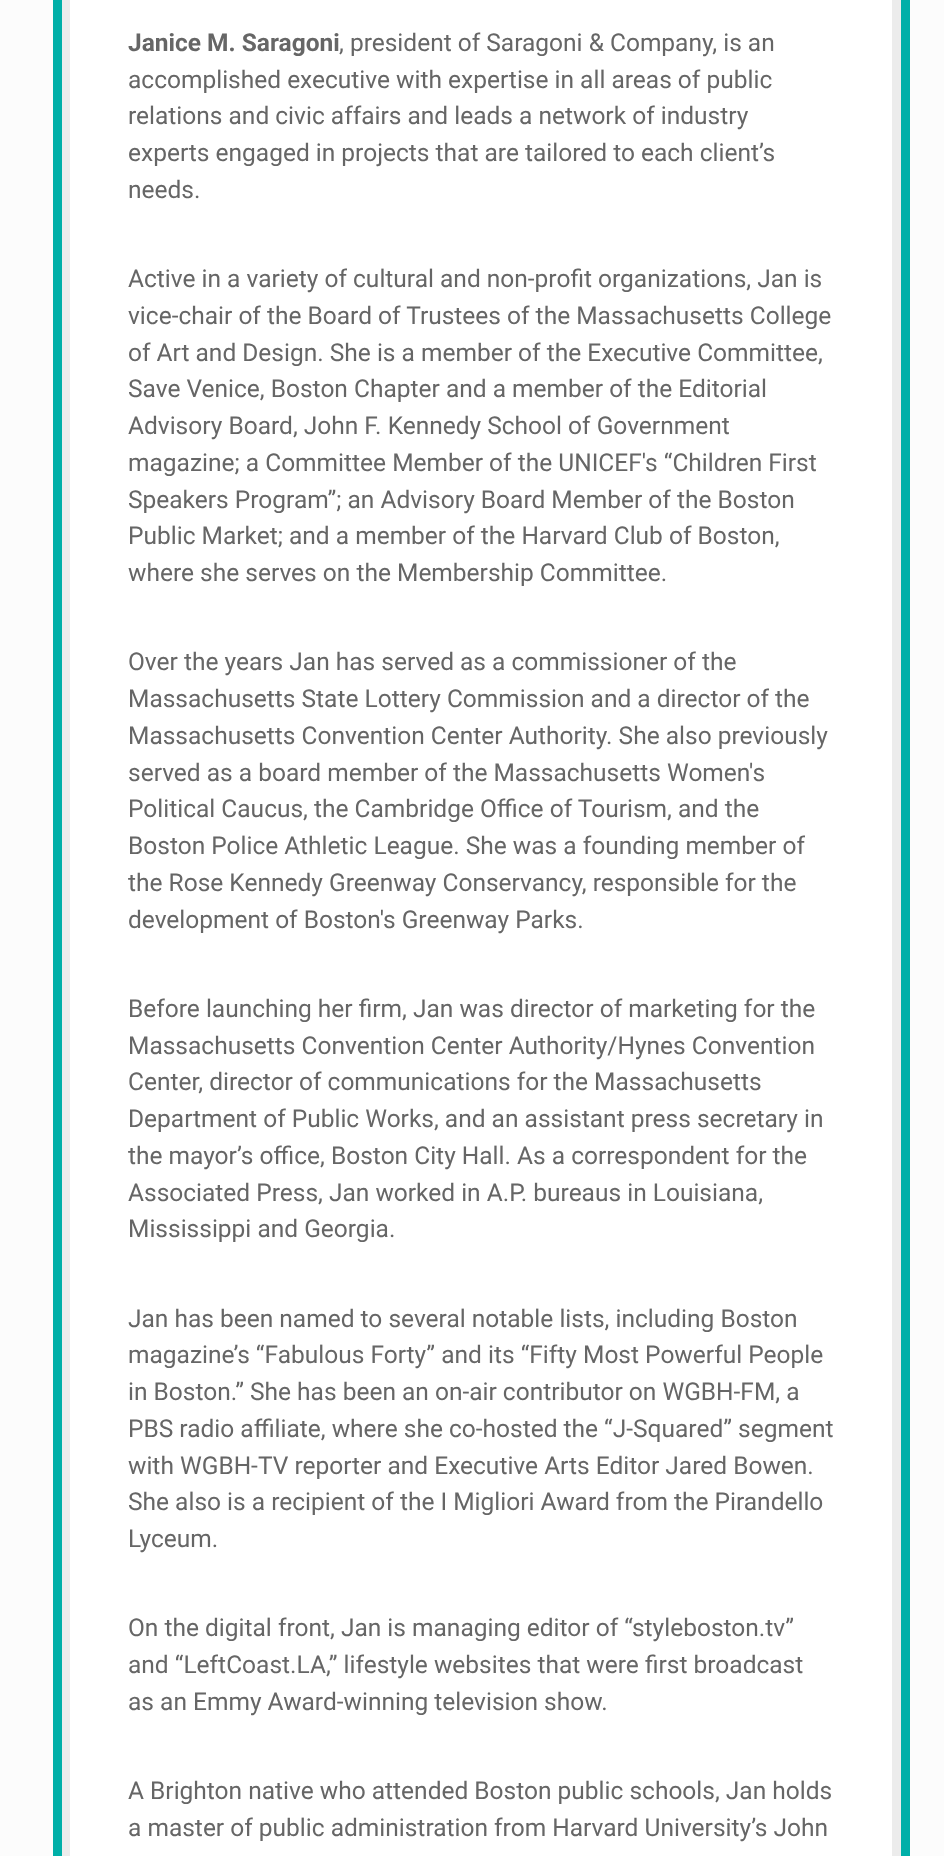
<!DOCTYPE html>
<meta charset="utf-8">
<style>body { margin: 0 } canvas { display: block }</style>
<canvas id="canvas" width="944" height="1856"></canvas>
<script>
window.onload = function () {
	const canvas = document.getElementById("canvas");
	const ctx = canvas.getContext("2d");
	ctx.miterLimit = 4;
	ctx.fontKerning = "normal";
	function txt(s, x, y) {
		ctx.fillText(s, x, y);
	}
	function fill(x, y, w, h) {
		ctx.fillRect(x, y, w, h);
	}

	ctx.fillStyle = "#FCFCFC";
	fill(0, 0, 944, 1856);
	ctx.fillStyle = "#FFFFFF";
	ctx.beginPath();
	ctx.rect(65.5, -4.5, 831, 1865);
	ctx.fill();
	ctx.strokeStyle = "#ECECEC";
	ctx.lineWidth = 9;
	ctx.stroke();
	ctx.strokeStyle = "#00AFA8";
	ctx.strokeRect(57.5, -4.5, 848, 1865);
	ctx.font = "bold 24.5px Roboto";
	ctx.fillStyle = "#666666";
	txt("Janice M. Saragoni", 128, 51);
	ctx.font = "24.5px Roboto";
	txt(", president of Saragoni & Company, is an", 339, 51);
	txt("accomplished executive with expertise in all areas of public", 128, 88);
	txt("relations and civic affairs and leads a network of industry", 128, 124);
	txt("experts engaged in projects that are tailored to each client’s", 128, 161);
	txt("needs.", 128, 198);
	txt("Active in a variety of cultural and non-profit organizations, Jan is", 128, 287);
	txt("vice-chair of the Board of Trustees of the Massachusetts College", 128, 324);
	txt("of Art and Design. She is a member of the Executive Committee,", 128, 361);
	txt("Save Venice, Boston Chapter and a member of the Editorial", 128, 397);
	txt("Advisory Board, John F. Kennedy School of Government", 128, 434);
	txt("magazine; a Committee Member of the UNICEF's “Children First", 128, 471);
	txt("Speakers Program”; an Advisory Board Member of the Boston", 128, 508);
	txt("Public Market; and a member of the Harvard Club of Boston,", 128, 544);
	txt("where she serves on the Membership Committee.", 128, 581);
	txt("Over the years Jan has served as a commissioner of the", 128, 670);
	txt("Massachusetts State Lottery Commission and a director of the", 128, 707);
	txt("Massachusetts Convention Center Authority. She also previously", 128, 744);
	txt("served as a board member of the Massachusetts Women's", 128, 781);
	txt("Political Caucus, the Cambridge Office of Tourism, and the", 128, 817);
	txt("Boston Police Athletic League. She was a founding member of", 128, 854);
	txt("the Rose Kennedy Greenway Conservancy, responsible for the", 128, 891);
	txt("development of Boston's Greenway Parks.", 128, 928);
	txt("Before launching her firm, Jan was director of marketing for the", 128, 1017);
	txt("Massachusetts Convention Center Authority/Hynes Convention", 128, 1054);
	txt("Center, director of communications for the Massachusetts", 128, 1090);
	txt("Department of Public Works, and an assistant press secretary in", 128, 1127);
	txt("the mayor’s office, Boston City Hall. As a correspondent for the", 128, 1164);
	txt("Associated Press, Jan worked in A.P. bureaus in Louisiana,", 128, 1201);
	txt("Mississippi and Georgia.", 128, 1237);
	txt("Jan has been named to several notable lists, including Boston", 128, 1327);
	txt("magazine’s “Fabulous Forty” and its “Fifty Most Powerful People", 128, 1363);
	txt("in Boston.” She has been an on-air contributor on WGBH-FM, a", 128, 1400);
	txt("PBS radio affiliate, where she co-hosted the “J-Squared” segment", 128, 1437);
	txt("with WGBH-TV reporter and Executive Arts Editor Jared Bowen.", 128, 1474);
	txt("She also is a recipient of the I Migliori Award from the Pirandello", 128, 1510);
	txt("Lyceum.", 128, 1547);
	txt("On the digital front, Jan is managing editor of “styleboston.tv”", 128, 1636);
	txt("and “LeftCoast.LA,” lifestyle websites that were first broadcast", 128, 1673);
	txt("as an Emmy Award-winning television show.", 128, 1710);
	txt("A Brighton native who attended Boston public schools, Jan holds", 128, 1799);
	txt("a master of public administration from Harvard University’s John", 128, 1836);
};
</script>
